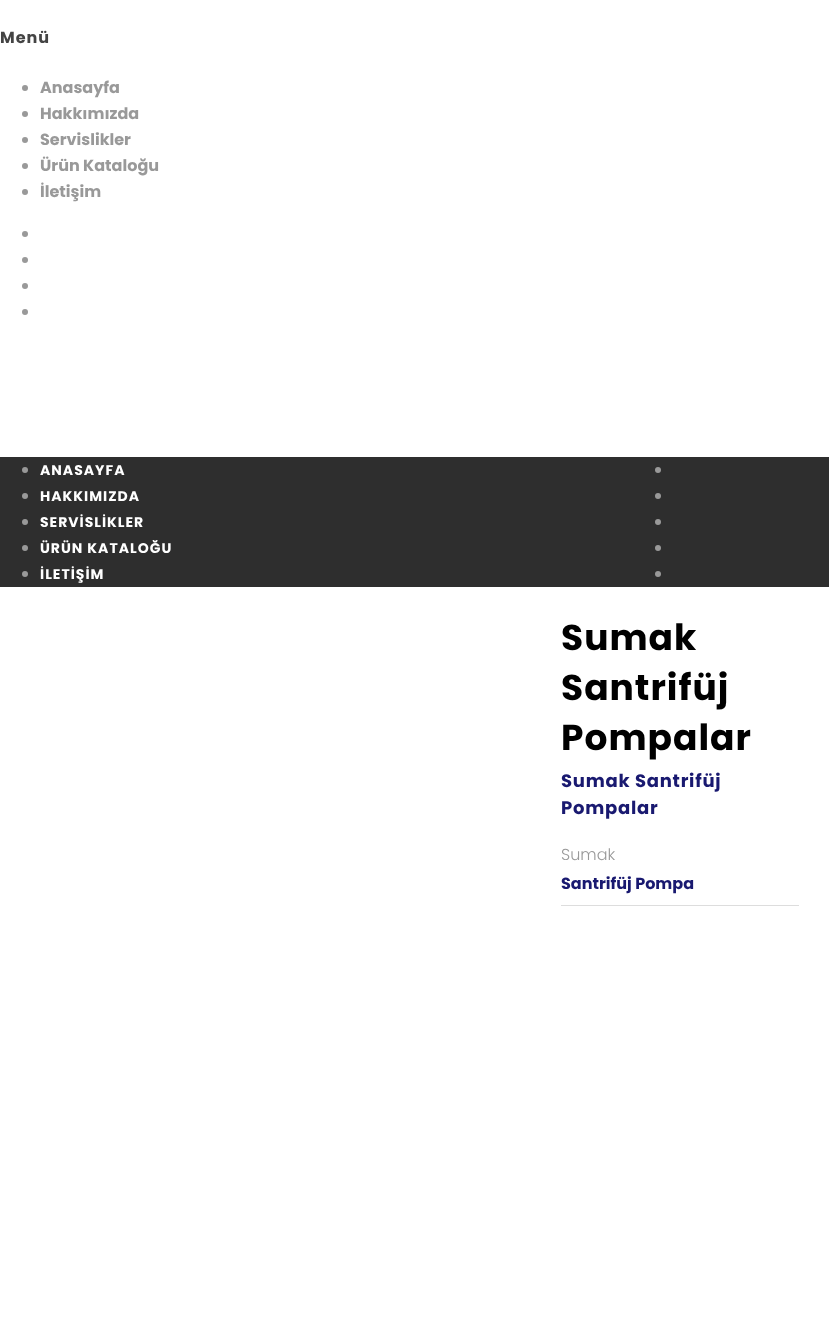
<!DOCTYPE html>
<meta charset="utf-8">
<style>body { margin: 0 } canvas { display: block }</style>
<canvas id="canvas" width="829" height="1317"></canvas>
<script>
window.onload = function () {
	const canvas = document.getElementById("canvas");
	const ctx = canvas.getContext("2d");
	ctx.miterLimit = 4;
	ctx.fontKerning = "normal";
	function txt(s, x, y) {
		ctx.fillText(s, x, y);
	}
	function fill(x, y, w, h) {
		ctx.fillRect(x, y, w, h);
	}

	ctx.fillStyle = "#FFFFFF";
	fill(0, 0, 829, 1317);
	ctx.fillStyle = "#999999";
	ctx.beginPath();
	ctx.arc(25, 88, 3, 0, Math.PI * 2);
	ctx.fill();
	ctx.beginPath();
	ctx.arc(25, 114, 3, 0, Math.PI * 2);
	ctx.fill();
	ctx.beginPath();
	ctx.arc(25, 140, 3, 0, Math.PI * 2);
	ctx.fill();
	ctx.beginPath();
	ctx.arc(25, 166, 3, 0, Math.PI * 2);
	ctx.fill();
	ctx.beginPath();
	ctx.arc(25, 192, 3, 0, Math.PI * 2);
	ctx.fill();
	ctx.beginPath();
	ctx.arc(25, 234, 3, 0, Math.PI * 2);
	ctx.fill();
	ctx.beginPath();
	ctx.arc(25, 260, 3, 0, Math.PI * 2);
	ctx.fill();
	ctx.beginPath();
	ctx.arc(25, 286, 3, 0, Math.PI * 2);
	ctx.fill();
	ctx.beginPath();
	ctx.arc(25, 312, 3, 0, Math.PI * 2);
	ctx.fill();
	ctx.fillStyle = "#2E2E2E";
	fill(0, 457, 829, 130);
	ctx.fillStyle = "#999999";
	ctx.beginPath();
	ctx.arc(25, 470, 3, 0, Math.PI * 2);
	ctx.fill();
	ctx.beginPath();
	ctx.arc(25, 496, 3, 0, Math.PI * 2);
	ctx.fill();
	ctx.beginPath();
	ctx.arc(25, 522, 3, 0, Math.PI * 2);
	ctx.fill();
	ctx.beginPath();
	ctx.arc(25, 548, 3, 0, Math.PI * 2);
	ctx.fill();
	ctx.beginPath();
	ctx.arc(25, 574, 3, 0, Math.PI * 2);
	ctx.fill();
	ctx.beginPath();
	ctx.arc(658, 470, 3, 0, Math.PI * 2);
	ctx.fill();
	ctx.beginPath();
	ctx.arc(658, 496, 3, 0, Math.PI * 2);
	ctx.fill();
	ctx.beginPath();
	ctx.arc(658, 522, 3, 0, Math.PI * 2);
	ctx.fill();
	ctx.beginPath();
	ctx.arc(658, 548, 3, 0, Math.PI * 2);
	ctx.fill();
	ctx.beginPath();
	ctx.arc(658, 574, 3, 0, Math.PI * 2);
	ctx.fill();
	ctx.fillStyle = "#DDDDDD";
	fill(561, 905, 238, 1);
	ctx.letterSpacing = "1px";
	ctx.font = "bold 16px Poppins";
	ctx.fillStyle = "#444444";
	txt("Menü", 0, 43);
	ctx.letterSpacing = "0px";
	ctx.fillStyle = "#999999";
	txt("Anasayfa", 40, 93);
	txt("Hakkımızda", 40, 119);
	txt("Servislikler", 40, 145);
	txt("Ürün Kataloğu", 40, 171);
	txt("İletişim", 40, 197);
	ctx.letterSpacing = "1px";
	ctx.font = "bold 14px Poppins";
	ctx.fillStyle = "#FFFFFF";
	txt("ANASAYFA", 40, 475);
	txt("HAKKIMIZDA", 40, 501);
	txt("SERVİSLİKLER", 40, 527);
	txt("ÜRÜN KATALOĞU", 40, 553);
	txt("İLETİŞİM", 40, 579);
	ctx.font = "bold 36px Poppins";
	ctx.fillStyle = "#000000";
	txt("Sumak", 561, 650);
	txt("Santrifüj", 561, 700);
	txt("Pompalar", 561, 750);
	ctx.letterSpacing = "0.75px";
	ctx.font = "bold 18px Poppins";
	ctx.fillStyle = "#191970";
	txt("Sumak Santrifüj", 561, 787);
	txt("Pompalar", 561, 814);
	ctx.letterSpacing = "0px";
	ctx.font = "300 16px Poppins";
	ctx.fillStyle = "#999999";
	txt("Sumak", 561, 860);
	ctx.font = "bold 16px Poppins";
	ctx.fillStyle = "#191970";
	txt("Santrifüj Pompa", 561, 889);
};
</script>
